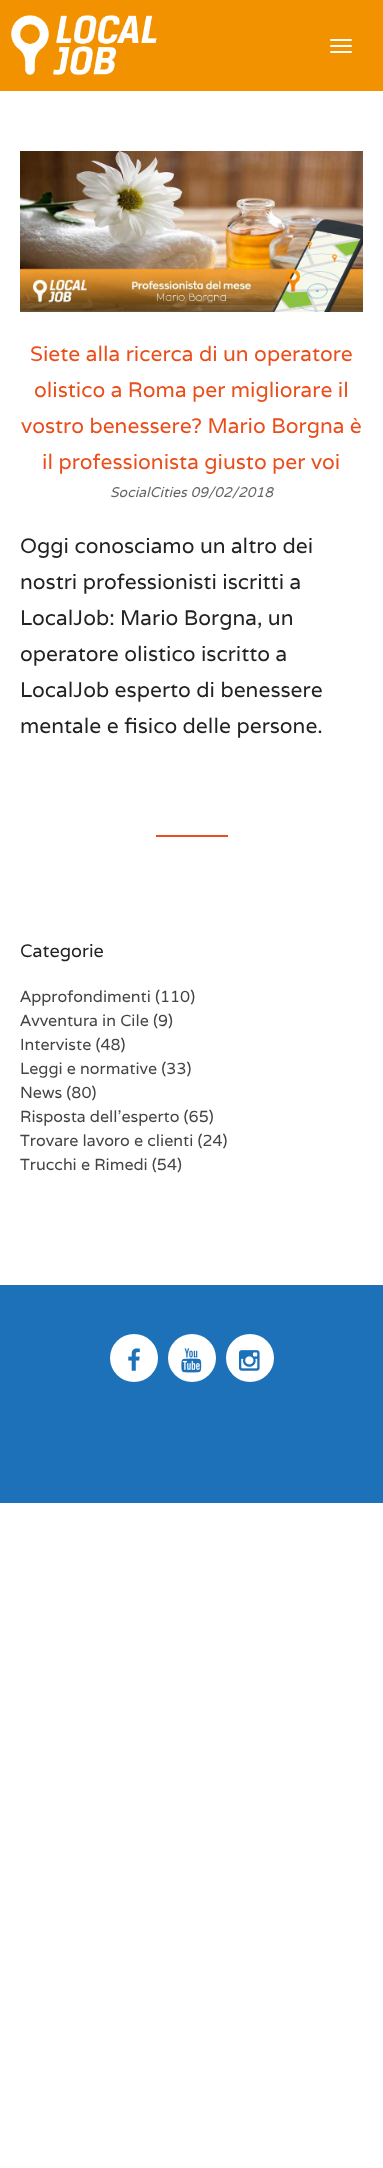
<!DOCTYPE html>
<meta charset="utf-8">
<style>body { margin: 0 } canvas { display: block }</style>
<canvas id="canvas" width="383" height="2168"></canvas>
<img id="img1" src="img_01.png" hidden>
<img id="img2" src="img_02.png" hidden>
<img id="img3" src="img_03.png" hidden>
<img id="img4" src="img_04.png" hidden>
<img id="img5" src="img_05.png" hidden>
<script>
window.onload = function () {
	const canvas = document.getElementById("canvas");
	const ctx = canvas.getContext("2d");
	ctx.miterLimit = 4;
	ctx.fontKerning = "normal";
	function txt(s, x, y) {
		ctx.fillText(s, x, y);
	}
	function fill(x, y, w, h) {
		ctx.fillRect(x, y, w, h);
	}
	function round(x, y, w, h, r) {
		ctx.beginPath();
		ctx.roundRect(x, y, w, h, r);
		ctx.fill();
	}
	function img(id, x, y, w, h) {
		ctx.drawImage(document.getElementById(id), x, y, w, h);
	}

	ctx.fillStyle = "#FFFFFF";
	fill(0, 0, 383, 2168);
	ctx.fillStyle = "#F39200";
	fill(0, 0, 383, 91);
	img("img1", 11, 15, 146, 60);
	ctx.fillStyle = "#FFFFFF";
	round(330, 39, 22, 2, 1);
	round(330, 45, 22, 2, 1);
	round(330, 51, 22, 2, 1);
	img("img2", 20, 151, 343, 161);
	ctx.fillStyle = "#E94E1B";
	fill(156, 835, 72, 2);
	ctx.fillStyle = "#1D71B8";
	fill(0, 1285, 383, 218);
	ctx.fillStyle = "#FFFFFF";
	ctx.beginPath();
	ctx.arc(134, 1358, 24, 0, Math.PI * 2);
	ctx.fill();
	img("img3", 128, 1348, 12, 23);
	ctx.beginPath();
	ctx.arc(192, 1358, 24, 0, Math.PI * 2);
	ctx.fill();
	img("img4", 181, 1348, 21, 25);
	ctx.beginPath();
	ctx.arc(250, 1358, 24, 0, Math.PI * 2);
	ctx.fill();
	img("img5", 239, 1350, 21, 21);
	ctx.font = "21px Varela";
	ctx.fillStyle = "#E94E1B";
	txt("Siete alla ricerca di un operatore", 30, 361);
	txt("olistico a Roma per migliorare il", 34, 397);
	txt("vostro benessere? Mario Borgna è", 21, 433);
	txt("il professionista giusto per voi", 42, 469);
	ctx.font = "italic 14px Varela";
	ctx.fillStyle = "#666666";
	txt("SocialCities 09/02/2018", 110, 497);
	ctx.font = "21px Varela";
	ctx.fillStyle = "#222222";
	txt("Oggi conosciamo un altro dei", 20, 553);
	txt("nostri professionisti iscritti a", 20, 589);
	txt("LocalJob: Mario Borgna, un", 20, 625);
	txt("operatore olistico iscritto a", 20, 661);
	txt("LocalJob esperto di benessere", 20, 697);
	txt("mentale e fisico delle persone.", 20, 733);
	ctx.font = "18px Varela";
	txt("Categorie", 20, 957);
	ctx.font = "16px Varela";
	ctx.fillStyle = "#444444";
	txt("Approfondimenti (110)", 20, 1002);
	txt("Avventura in Cile (9)", 20, 1026);
	txt("Interviste (48)", 20, 1050);
	txt("Leggi e normative (33)", 20, 1074);
	txt("News (80)", 20, 1098);
	txt("Risposta dell'esperto (65)", 20, 1122);
	txt("Trovare lavoro e clienti (24)", 20, 1146);
	txt("Trucchi e Rimedi (54)", 20, 1170);
};
</script>
